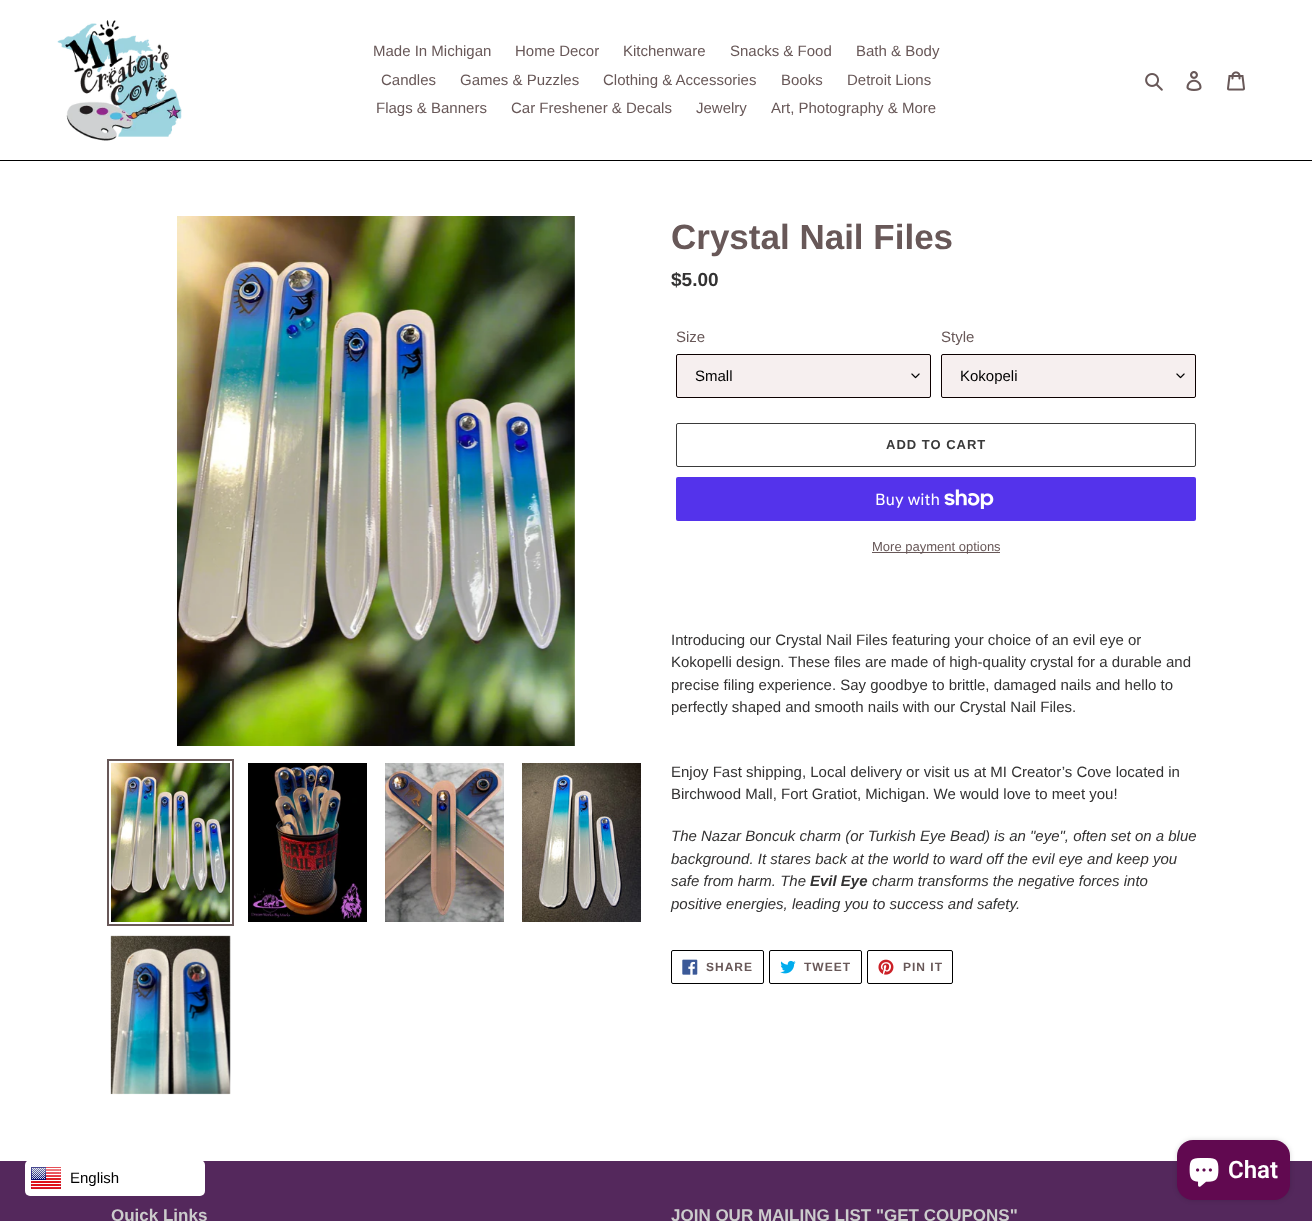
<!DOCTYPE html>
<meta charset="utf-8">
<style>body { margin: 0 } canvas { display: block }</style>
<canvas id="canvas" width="1312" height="1221"></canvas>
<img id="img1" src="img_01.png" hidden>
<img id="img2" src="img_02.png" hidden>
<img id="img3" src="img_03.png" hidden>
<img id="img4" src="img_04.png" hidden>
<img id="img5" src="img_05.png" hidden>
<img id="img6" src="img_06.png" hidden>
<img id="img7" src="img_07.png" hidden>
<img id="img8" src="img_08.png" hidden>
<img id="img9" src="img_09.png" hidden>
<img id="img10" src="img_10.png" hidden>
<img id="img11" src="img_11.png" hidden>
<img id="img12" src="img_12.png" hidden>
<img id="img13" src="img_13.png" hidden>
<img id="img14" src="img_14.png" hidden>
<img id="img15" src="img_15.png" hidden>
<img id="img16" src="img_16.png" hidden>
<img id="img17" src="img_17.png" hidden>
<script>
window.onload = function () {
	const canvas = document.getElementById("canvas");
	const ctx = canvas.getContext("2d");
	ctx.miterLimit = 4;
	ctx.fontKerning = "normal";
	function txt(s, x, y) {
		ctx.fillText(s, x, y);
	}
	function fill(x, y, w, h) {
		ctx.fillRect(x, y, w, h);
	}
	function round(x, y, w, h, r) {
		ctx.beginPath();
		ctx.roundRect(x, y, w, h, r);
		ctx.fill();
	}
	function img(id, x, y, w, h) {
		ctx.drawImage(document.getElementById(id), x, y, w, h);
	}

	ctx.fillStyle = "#FFFFFF";
	fill(0, 0, 1312, 1221);
	ctx.fillStyle = "#000000";
	fill(0, 160, 1312, 1);
	img("img1", 57, 20, 125, 121);
	img("img2", 1145, 73, 18, 18);
	img("img3", 1186, 71, 16, 20);
	img("img4", 1227, 71, 18, 20);
	ctx.fillStyle = "#54285C";
	fill(0, 1161, 1312, 60);
	ctx.fillStyle = "#FFFFFF";
	round(25, 1160, 180, 36, 5);
	img("img5", 31, 1167, 30, 22);
	img("img6", 177, 216, 398, 530);
	ctx.strokeStyle = "#685858";
	ctx.lineWidth = 2;
	ctx.strokeRect(108, 760, 125, 165);
	img("img7", 111, 763, 119, 159);
	img("img8", 248, 763, 119, 159);
	img("img9", 385, 763, 119, 159);
	img("img10", 522, 763, 119, 159);
	img("img11", 110, 935, 121, 160);
	ctx.fillStyle = "#F6EFEF";
	round(676, 354, 255, 44, 2);
	img("img12", 911, 373, 9, 6);
	ctx.beginPath();
	ctx.roundRect(676.5, 354.5, 254, 43, 1.5);
	ctx.strokeStyle = "#0C0000";
	ctx.lineWidth = 1;
	ctx.stroke();
	round(941, 354, 255, 44, 2);
	img("img12", 1176, 373, 9, 6);
	ctx.beginPath();
	ctx.roundRect(941.5, 354.5, 254, 43, 1.5);
	ctx.stroke();
	ctx.beginPath();
	ctx.roundRect(676.5, 423.5, 519, 43, 1.5);
	ctx.strokeStyle = "#3A3A3A";
	ctx.stroke();
	ctx.fillStyle = "#5433EB";
	round(676, 477, 520, 44, 2);
	img("img13", 944, 489, 50, 20);
	ctx.fillStyle = "#685858";
	fill(872, 552, 128, 1);
	ctx.beginPath();
	ctx.roundRect(671.5, 950.5, 92, 33, 1.5);
	ctx.strokeStyle = "#000000";
	ctx.stroke();
	img("img14", 682, 959, 16, 16);
	ctx.beginPath();
	ctx.roundRect(769.5, 950.5, 92, 33, 1.5);
	ctx.stroke();
	img("img15", 780, 960, 16, 14);
	ctx.beginPath();
	ctx.roundRect(867.5, 950.5, 85, 33, 1.5);
	ctx.stroke();
	img("img16", 878, 959, 16, 16);
	ctx.fillStyle = "rgba(0, 0, 0, 0.15)";
	ctx.filter = "blur(2.5px)";
	ctx.beginPath();
	ctx.roundRect(1177, 1140, 113, 60, 16);
	ctx.fill();
	ctx.filter = "none";
	ctx.fillStyle = "#610950";
	round(1177, 1140, 113, 60, 16);
	img("img17", 1189, 1158, 30, 29);
	ctx.font = "15px Liberation Sans";
	ctx.fillStyle = "#685858";
	txt("Made In Michigan", 373, 56);
	txt("Home Decor", 515, 56);
	txt("Kitchenware", 623, 56);
	txt("Snacks & Food", 730, 56);
	txt("Bath & Body", 856, 56);
	txt("Candles", 381, 85);
	txt("Games & Puzzles", 460, 85);
	txt("Clothing & Accessories", 603, 85);
	txt("Books", 781, 85);
	txt("Detroit Lions", 847, 85);
	txt("Flags & Banners", 376, 113);
	txt("Car Freshener & Decals", 511, 113);
	txt("Jewelry", 696, 113);
	txt("Art, Photography & More", 771, 113);
	ctx.fillStyle = "#000000";
	txt("English", 70, 1183);
	ctx.font = "bold 35px Liberation Sans";
	ctx.fillStyle = "#685858";
	txt("Crystal Nail Files", 671, 249);
	ctx.font = "bold 19px Liberation Sans";
	ctx.fillStyle = "#333232";
	txt("$5.00", 671, 286);
	ctx.font = "15px Liberation Sans";
	ctx.fillStyle = "#685858";
	txt("Size", 676, 342);
	ctx.fillStyle = "#000000";
	txt("Small", 695, 381);
	ctx.fillStyle = "#685858";
	txt("Style", 941, 342);
	ctx.fillStyle = "#000000";
	txt("Kokopeli", 960, 381);
	ctx.letterSpacing = "1px";
	ctx.font = "bold 13px Liberation Sans";
	ctx.fillStyle = "#3A3A3A";
	txt("ADD TO CART", 886, 449);
	ctx.letterSpacing = "0px";
	ctx.font = "16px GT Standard";
	ctx.fillStyle = "#FFFFFF";
	txt("Buy with", 875, 505);
	ctx.font = "13px Liberation Sans";
	ctx.fillStyle = "#685858";
	txt("More payment options", 872, 551);
	ctx.font = "15px Liberation Sans";
	ctx.fillStyle = "#333232";
	txt("Introducing our Crystal Nail Files featuring your choice of an evil eye or", 671, 645);
	txt("Kokopelli design. These files are made of high-quality crystal for a durable and", 671, 667);
	txt("precise filing experience. Say goodbye to brittle, damaged nails and hello to", 671, 690);
	txt("perfectly shaped and smooth nails with our Crystal Nail Files.", 671, 712);
	txt("Enjoy Fast shipping, Local delivery or visit us at MI Creator’s Cove located in", 671, 777);
	txt("Birchwood Mall, Fort Gratiot, Michigan. We would love to meet you!", 671, 799);
	ctx.font = "italic 15px Liberation Sans";
	txt("The Nazar Boncuk charm (or Turkish Eye Bead) is an \"eye\", often set on a blue", 671, 841);
	txt("background. It stares back at the world to ward off the evil eye and keep you", 671, 864);
	txt("safe from harm. The", 671, 886);
	ctx.font = "italic bold 15px Liberation Sans";
	txt("Evil Eye", 810, 886);
	ctx.font = "italic 15px Liberation Sans";
	txt("charm transforms the negative forces into", 872, 886);
	txt("positive energies, leading you to success and safety.", 671, 909);
	ctx.letterSpacing = "1px";
	ctx.font = "bold 12px Liberation Sans";
	ctx.fillStyle = "#685858";
	txt("SHARE", 706, 971);
	txt("TWEET", 804, 971);
	txt("PIN IT", 903, 971);
	ctx.letterSpacing = "0px";
	ctx.font = "bold 17px Liberation Sans";
	ctx.fillStyle = "#CCCCCC";
	txt("Quick Links", 111, 1221);
	txt("JOIN OUR MAILING LIST \"GET COUPONS\"", 671, 1221);
	ctx.font = "600 24px Roboto";
	ctx.fillStyle = "#FFFFFF";
	txt("Chat", 1228, 1178);
};
</script>
